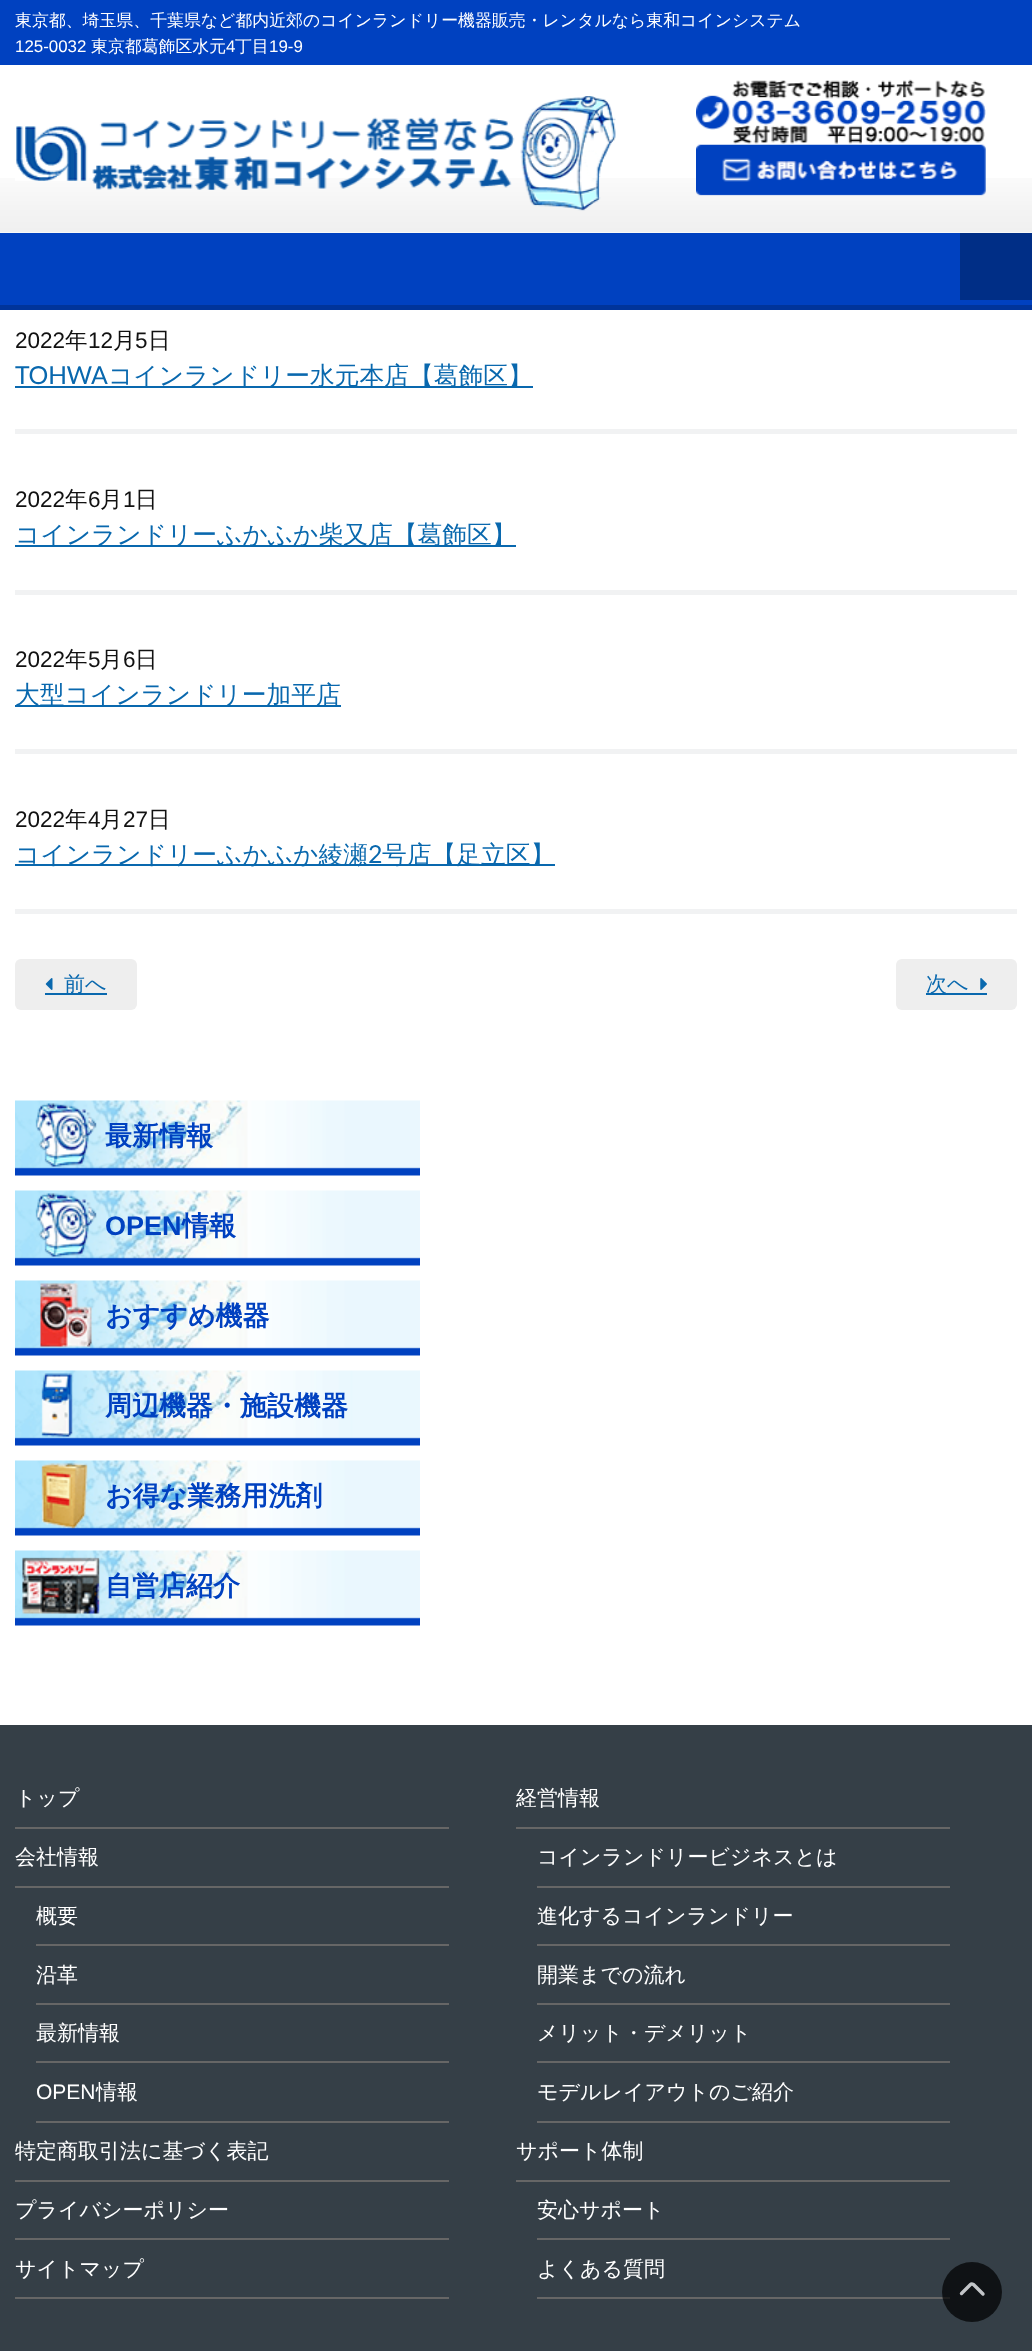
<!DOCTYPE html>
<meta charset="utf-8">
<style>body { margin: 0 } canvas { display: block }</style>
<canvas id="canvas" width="1032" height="2351"></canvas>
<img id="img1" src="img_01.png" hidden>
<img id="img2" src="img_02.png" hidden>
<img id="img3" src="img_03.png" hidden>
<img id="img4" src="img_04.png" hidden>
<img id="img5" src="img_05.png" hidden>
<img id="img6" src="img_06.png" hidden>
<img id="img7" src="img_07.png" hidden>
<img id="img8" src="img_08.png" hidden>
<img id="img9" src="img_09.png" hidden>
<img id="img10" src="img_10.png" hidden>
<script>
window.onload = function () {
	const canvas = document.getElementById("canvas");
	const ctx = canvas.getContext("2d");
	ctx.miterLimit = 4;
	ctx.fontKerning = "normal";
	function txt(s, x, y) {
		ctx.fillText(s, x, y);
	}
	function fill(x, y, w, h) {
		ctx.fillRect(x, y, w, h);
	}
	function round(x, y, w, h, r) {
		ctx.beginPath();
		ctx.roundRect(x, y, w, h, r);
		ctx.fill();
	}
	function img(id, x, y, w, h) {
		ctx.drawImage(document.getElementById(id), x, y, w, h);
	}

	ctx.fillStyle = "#FFFFFF";
	fill(0, 0, 1032, 2351);
	ctx.fillStyle = "#0041C0";
	fill(0, 0, 1032, 65);
	img("img1", 0, 178, 1032, 55);
	img("img2", 15, 96, 601, 115);
	img("img3", 696, 79, 290, 117);
	fill(0, 233, 960, 72);
	ctx.fillStyle = "#00349A";
	fill(0, 305, 1032, 5);
	ctx.fillStyle = "#002E86";
	fill(960, 233, 72, 67);
	ctx.fillStyle = "#0041C0";
	fill(960, 300, 72, 5);
	ctx.fillStyle = "#F1F2F3";
	fill(15, 429, 1002, 5);
	ctx.fillStyle = "#0968AE";
	fill(15, 386, 518, 2);
	ctx.fillStyle = "#F1F2F3";
	fill(15, 590, 1002, 5);
	ctx.fillStyle = "#0968AE";
	fill(15, 545, 501, 2);
	ctx.fillStyle = "#F1F2F3";
	fill(15, 749, 1002, 5);
	ctx.fillStyle = "#0968AE";
	fill(15, 705, 326, 2);
	ctx.fillStyle = "#F1F2F3";
	fill(15, 909, 1002, 5);
	ctx.fillStyle = "#0968AE";
	fill(15, 864, 540, 2);
	ctx.fillStyle = "#EEEEEE";
	round(15, 959, 122, 51, 6);
	img("img4", 45, 978, 8, 12);
	ctx.fillStyle = "#0968AE";
	fill(45, 993, 62, 2);
	ctx.fillStyle = "#EEEEEE";
	round(896, 959, 121, 51, 6);
	ctx.fillStyle = "#0968AE";
	fill(926, 993, 61, 2);
	img("img5", 980, 978, 7, 12);
	img("img6", 15, 1100, 405, 76);
	img("img6", 15, 1190, 405, 76);
	img("img7", 15, 1280, 405, 76);
	img("img8", 15, 1370, 405, 76);
	img("img9", 15, 1460, 405, 76);
	img("img10", 15, 1550, 405, 76);
	ctx.fillStyle = "#353F47";
	fill(0, 1725, 1032, 626);
	ctx.fillStyle = "#666666";
	fill(15, 1827, 434, 2);
	fill(15, 1886, 434, 2);
	fill(36, 1944, 413, 2);
	fill(36, 2003, 413, 2);
	fill(36, 2061, 413, 2);
	fill(36, 2121, 413, 2);
	fill(15, 2180, 434, 2);
	fill(15, 2238, 434, 2);
	fill(15, 2297, 434, 2);
	fill(516, 1827, 434, 2);
	fill(537, 1886, 413, 2);
	fill(537, 1944, 413, 2);
	fill(537, 2003, 413, 2);
	fill(537, 2061, 413, 2);
	fill(537, 2121, 413, 2);
	fill(516, 2180, 434, 2);
	fill(537, 2238, 413, 2);
	fill(537, 2297, 413, 2);
	ctx.fillStyle = "rgba(0, 0, 0, 0.7)";
	ctx.beginPath();
	ctx.arc(972, 2292, 30, 0, Math.PI * 2);
	ctx.fill();
	ctx.beginPath();
	ctx.moveTo(983, 2294);
	ctx.lineTo(973.5, 2284.5);
	ctx.bezierCurveTo(972.5, 2284, 971, 2284, 970.5, 2284.5);
	ctx.lineTo(961.5, 2293.5);
	ctx.strokeStyle = "#C2C5C8";
	ctx.lineWidth = 3.4;
	ctx.lineCap = "round";
	ctx.lineJoin = "bevel";
	ctx.stroke();
	ctx.font = "500 16.9px WenQuanYi Zen Hei";
	ctx.fillStyle = "#FFFFFF";
	txt("東京都、埼玉県、千葉県など都内近郊のコインランドリー機器販売・レンタルなら東和コインシステム", 15, 26);
	ctx.font = "16.9px Liberation Sans";
	txt("125-0032", 15, 52);
	ctx.font = "500 16.9px WenQuanYi Zen Hei";
	txt("東京都葛飾区水元", 91, 52);
	ctx.font = "16.9px Liberation Sans";
	txt("4", 226, 52);
	ctx.font = "500 16.9px WenQuanYi Zen Hei";
	txt("丁目", 235, 52);
	ctx.font = "16.9px Liberation Sans";
	txt("19-9", 269, 52);
	ctx.font = "22.5px Liberation Sans";
	ctx.fillStyle = "#111111";
	txt("2022", 15, 348);
	ctx.font = "500 22.5px WenQuanYi Zen Hei";
	txt("年", 65, 348);
	ctx.font = "22.5px Liberation Sans";
	txt("12", 88, 348);
	ctx.font = "500 22.5px WenQuanYi Zen Hei";
	txt("月", 113, 348);
	ctx.font = "22.5px Liberation Sans";
	txt("5", 135, 348);
	ctx.font = "500 22.5px WenQuanYi Zen Hei";
	txt("日", 148, 348);
	ctx.font = "24.75px Lato";
	ctx.fillStyle = "#0968AE";
	txt("TOHWA", 15, 384);
	ctx.font = "500 24.75px WenQuanYi Zen Hei";
	txt("コインランドリー水元本店【葛飾区】", 108, 384);
	ctx.font = "22.5px Liberation Sans";
	ctx.fillStyle = "#111111";
	txt("2022", 15, 507);
	ctx.font = "500 22.5px WenQuanYi Zen Hei";
	txt("年", 65, 507);
	ctx.font = "22.5px Liberation Sans";
	txt("6", 88, 507);
	ctx.font = "500 22.5px WenQuanYi Zen Hei";
	txt("月", 100, 507);
	ctx.font = "22.5px Liberation Sans";
	txt("1", 123, 507);
	ctx.font = "500 22.5px WenQuanYi Zen Hei";
	txt("日", 135, 507);
	ctx.font = "500 24.75px WenQuanYi Zen Hei";
	ctx.fillStyle = "#0968AE";
	txt("コインランドリーふかふか柴又店【葛飾区】", 15, 543);
	ctx.font = "22.5px Liberation Sans";
	ctx.fillStyle = "#111111";
	txt("2022", 15, 667);
	ctx.font = "500 22.5px WenQuanYi Zen Hei";
	txt("年", 65, 667);
	ctx.font = "22.5px Liberation Sans";
	txt("5", 88, 667);
	ctx.font = "500 22.5px WenQuanYi Zen Hei";
	txt("月", 100, 667);
	ctx.font = "22.5px Liberation Sans";
	txt("6", 123, 667);
	ctx.font = "500 22.5px WenQuanYi Zen Hei";
	txt("日", 135, 667);
	ctx.font = "500 24.75px WenQuanYi Zen Hei";
	ctx.fillStyle = "#0968AE";
	txt("大型コインランドリー加平店", 15, 703);
	ctx.font = "22.5px Liberation Sans";
	ctx.fillStyle = "#111111";
	txt("2022", 15, 827);
	ctx.font = "500 22.5px WenQuanYi Zen Hei";
	txt("年", 65, 827);
	ctx.font = "22.5px Liberation Sans";
	txt("4", 88, 827);
	ctx.font = "500 22.5px WenQuanYi Zen Hei";
	txt("月", 100, 827);
	ctx.font = "22.5px Liberation Sans";
	txt("27", 123, 827);
	ctx.font = "500 22.5px WenQuanYi Zen Hei";
	txt("日", 148, 827);
	ctx.font = "500 24.75px WenQuanYi Zen Hei";
	ctx.fillStyle = "#0968AE";
	txt("コインランドリーふかふか綾瀬", 15, 863);
	ctx.font = "24.75px Lato";
	txt("2", 368, 863);
	ctx.font = "500 24.75px WenQuanYi Zen Hei";
	txt("号店【足立区】", 382, 863);
	ctx.font = "500 21px WenQuanYi Zen Hei";
	txt("前へ", 64, 991);
	txt("次へ", 926, 991);
	ctx.font = "bold 27px WenQuanYi Zen Hei";
	ctx.fillStyle = "#0041C0";
	txt("最新情報", 105, 1145);
	ctx.font = "bold 27px Liberation Sans";
	txt("OPEN", 105, 1235);
	ctx.font = "bold 27px WenQuanYi Zen Hei";
	txt("情報", 182, 1235);
	txt("おすすめ機器", 105, 1325);
	txt("周辺機器・施設機器", 105, 1415);
	txt("お得な業務用洗剤", 105, 1505);
	txt("自営店紹介", 105, 1595);
	ctx.font = "500 21px WenQuanYi Zen Hei";
	ctx.fillStyle = "#FFFFFF";
	txt("トップ", 15, 1805);
	txt("会社情報", 15, 1864);
	txt("概要", 36, 1923);
	txt("沿革", 36, 1982);
	txt("最新情報", 36, 2040);
	ctx.font = "21px Liberation Sans";
	txt("OPEN", 36, 2099);
	ctx.font = "500 21px WenQuanYi Zen Hei";
	txt("情報", 96, 2099);
	txt("特定商取引法に基づく表記", 15, 2158);
	txt("プライバシーポリシー", 15, 2217);
	txt("サイトマップ", 15, 2276);
	txt("経営情報", 516, 1805);
	txt("コインランドリービジネスとは", 537, 1864);
	txt("進化するコインランドリー", 537, 1923);
	txt("開業までの流れ", 537, 1982);
	txt("メリット・デメリット", 537, 2040);
	txt("モデルレイアウトのご紹介", 537, 2099);
	txt("サポート体制", 516, 2158);
	txt("安心サポート", 537, 2217);
	txt("よくある質問", 537, 2276);
};
</script>
